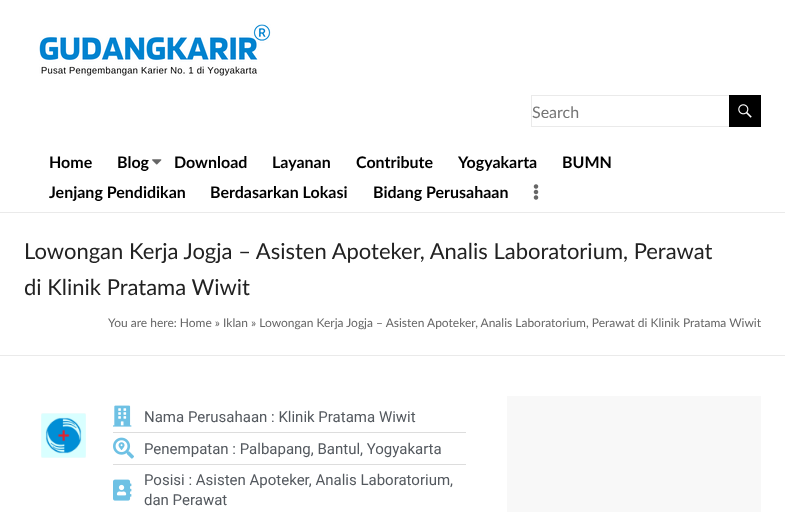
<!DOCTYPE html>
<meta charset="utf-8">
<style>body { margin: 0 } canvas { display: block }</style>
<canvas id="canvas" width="785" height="512"></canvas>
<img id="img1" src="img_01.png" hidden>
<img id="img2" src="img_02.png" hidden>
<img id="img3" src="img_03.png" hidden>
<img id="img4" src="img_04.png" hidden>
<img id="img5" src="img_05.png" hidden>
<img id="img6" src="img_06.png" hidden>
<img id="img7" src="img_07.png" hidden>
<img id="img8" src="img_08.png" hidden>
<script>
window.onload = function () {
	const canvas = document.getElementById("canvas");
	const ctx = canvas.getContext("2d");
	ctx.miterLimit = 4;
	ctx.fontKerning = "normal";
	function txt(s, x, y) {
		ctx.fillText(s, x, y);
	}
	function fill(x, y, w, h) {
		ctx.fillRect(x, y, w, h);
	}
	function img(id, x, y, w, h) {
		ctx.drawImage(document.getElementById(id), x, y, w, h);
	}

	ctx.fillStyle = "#FFFFFF";
	fill(0, 0, 785, 512);
	ctx.fillStyle = "#EAEAEA";
	fill(0, 212, 785, 1);
	img("img1", 39, 24, 232, 52);
	ctx.strokeStyle = "#EAEAEA";
	ctx.strokeRect(531.5, 95.5, 199, 31);
	ctx.fillStyle = "#000000";
	fill(729, 95, 32, 32);
	img("img2", 738, 104, 14, 14);
	img("img3", 152, 159, 10, 6);
	img("img4", 533, 184, 6, 16);
	ctx.fillStyle = "#EAEAEA";
	fill(0, 355, 785, 1);
	img("img5", 41, 413, 45, 45);
	img("img6", 113, 405, 19, 22);
	ctx.fillStyle = "#DDDDDD";
	fill(113, 432, 353, 1);
	img("img7", 113, 437, 21, 22);
	fill(113, 464, 353, 1);
	img("img8", 113, 479, 19, 22);
	ctx.fillStyle = "#F8F8F8";
	fill(507, 396, 254, 116);
	ctx.font = "16px Lato";
	ctx.fillStyle = "#757575";
	txt("Search", 532, 118);
	ctx.font = "bold 16px Lato";
	ctx.fillStyle = "#000000";
	txt("Home", 49, 168);
	txt("Blog", 117, 168);
	txt("Download", 174, 168);
	txt("Layanan", 272, 168);
	txt("Contribute", 356, 168);
	txt("Yogyakarta", 458, 168);
	txt("BUMN", 562, 168);
	txt("Jenjang Pendidikan", 49, 198);
	txt("Berdasarkan Lokasi", 210, 198);
	txt("Bidang Perusahaan", 373, 198);
	ctx.font = "22px Lato";
	ctx.fillStyle = "#222222";
	txt("Lowongan Kerja Jogja – Asisten Apoteker, Analis Laboratorium, Perawat", 24, 259);
	txt("di Klinik Pratama Wiwit", 24, 295);
	ctx.font = "12px Lato";
	ctx.fillStyle = "#666666";
	txt("You are here: Home » Iklan » Lowongan Kerja Jogja – Asisten Apoteker, Analis Laboratorium, Perawat di Klinik Pratama Wiwit", 108, 327);
	ctx.font = "15px Roboto";
	ctx.fillStyle = "#54595F";
	txt("Nama Perusahaan : Klinik Pratama Wiwit", 144, 422);
	txt("Penempatan : Palbapang, Bantul, Yogyakarta", 144, 454);
	txt("Posisi : Asisten Apoteker, Analis Laboratorium,", 144, 485);
	txt("dan Perawat", 144, 505);
};
</script>
